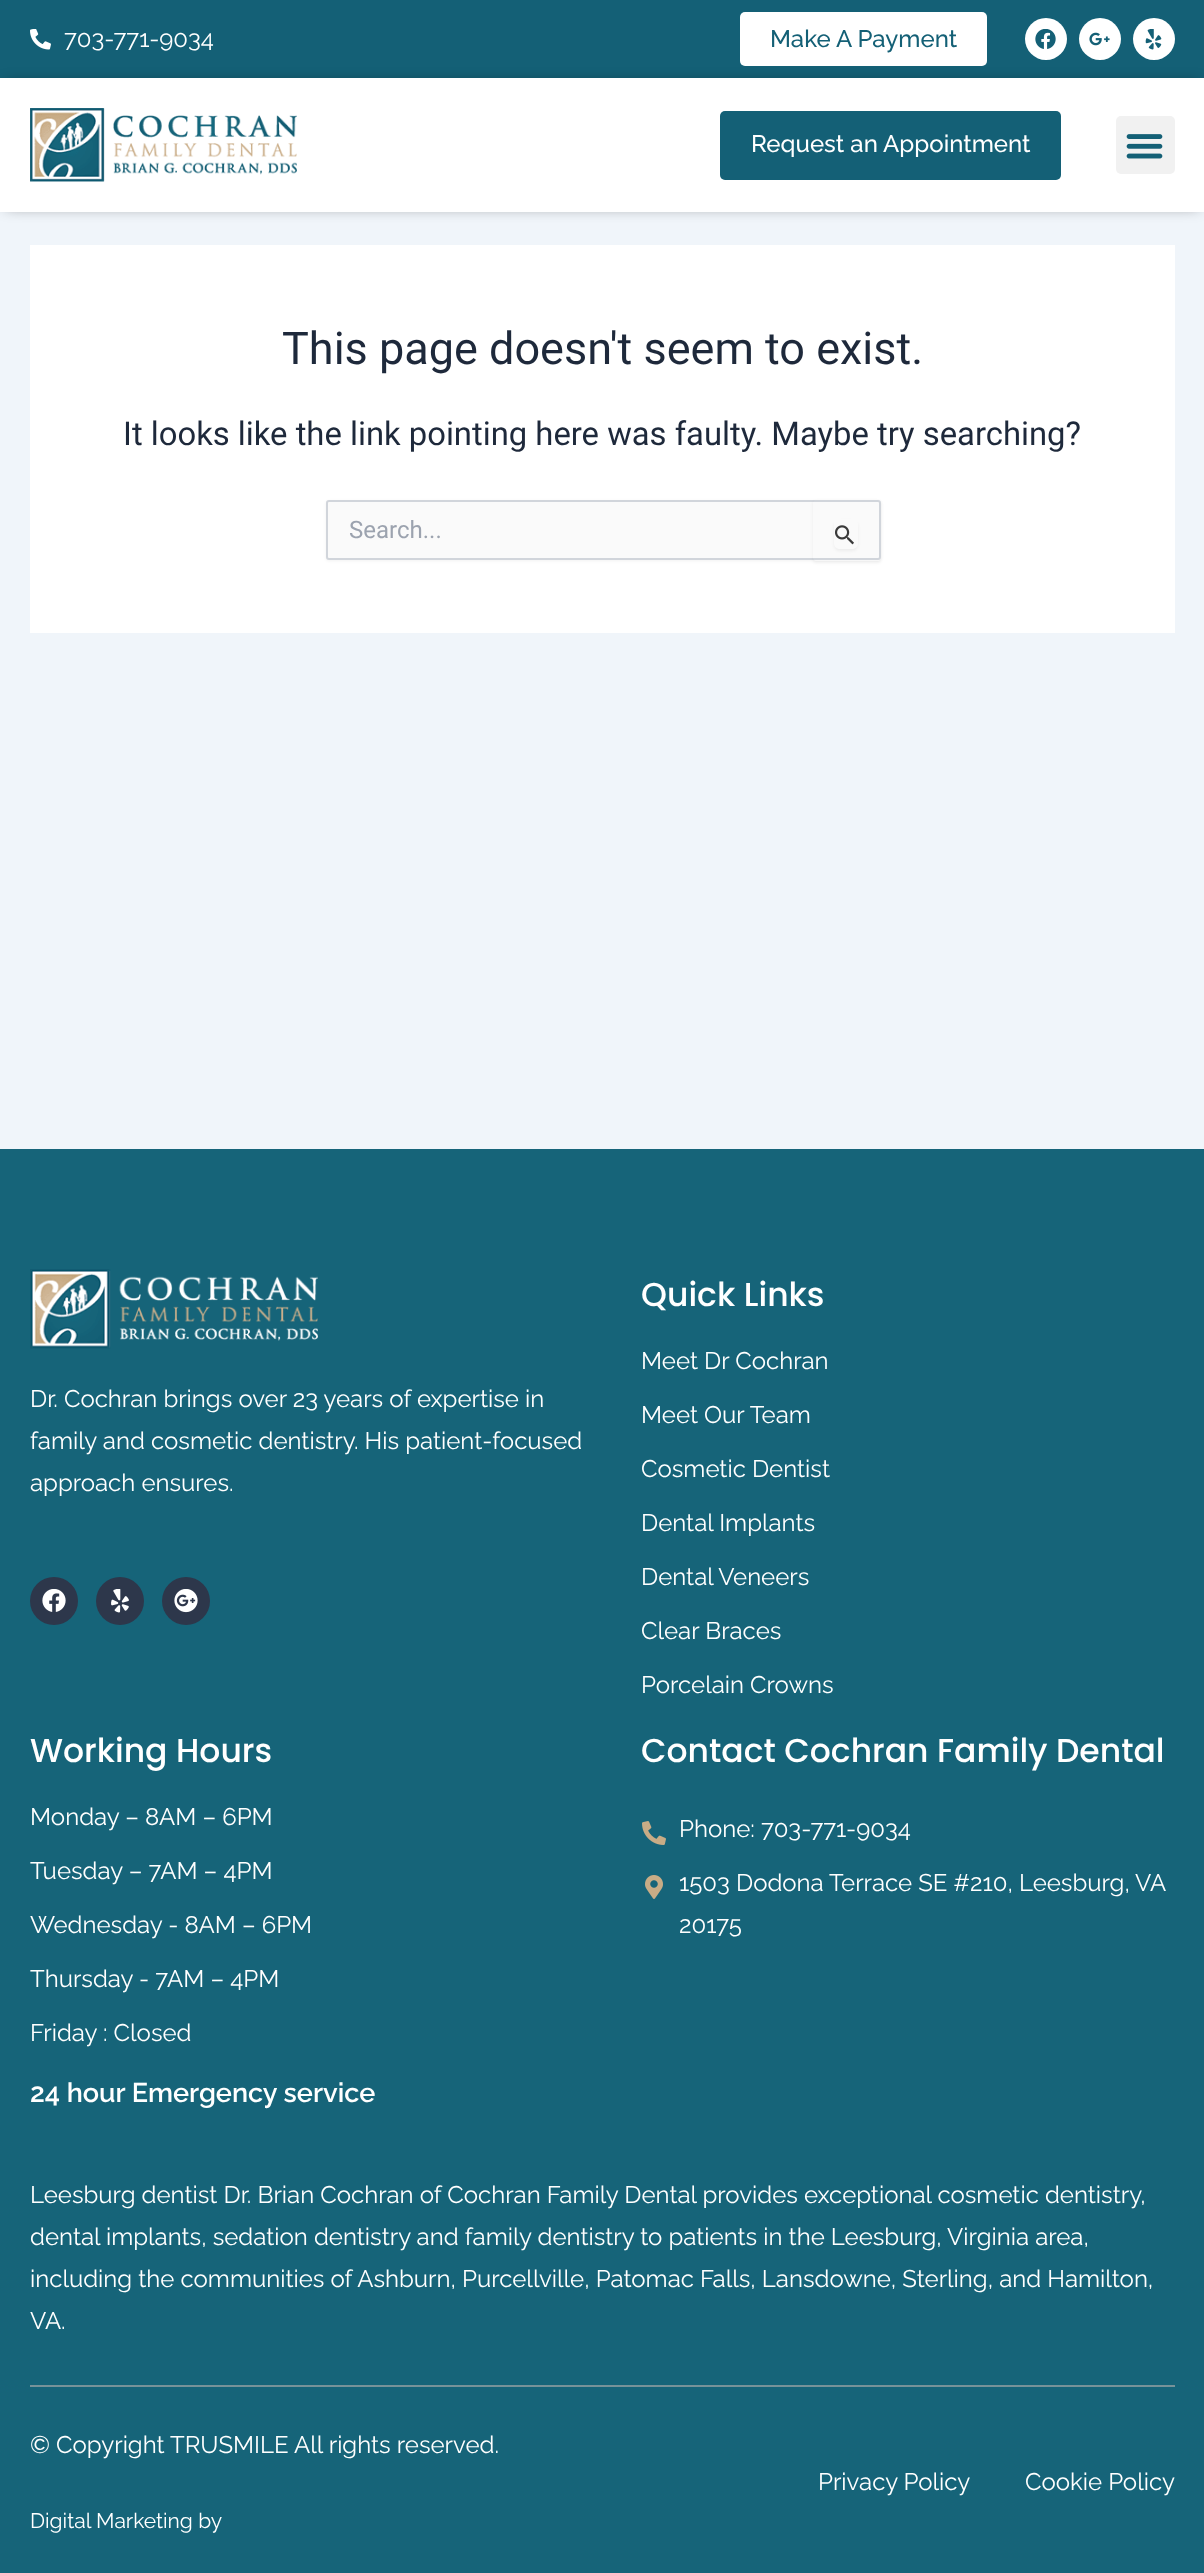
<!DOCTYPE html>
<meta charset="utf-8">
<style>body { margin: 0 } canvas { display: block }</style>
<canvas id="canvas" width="1204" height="2573"></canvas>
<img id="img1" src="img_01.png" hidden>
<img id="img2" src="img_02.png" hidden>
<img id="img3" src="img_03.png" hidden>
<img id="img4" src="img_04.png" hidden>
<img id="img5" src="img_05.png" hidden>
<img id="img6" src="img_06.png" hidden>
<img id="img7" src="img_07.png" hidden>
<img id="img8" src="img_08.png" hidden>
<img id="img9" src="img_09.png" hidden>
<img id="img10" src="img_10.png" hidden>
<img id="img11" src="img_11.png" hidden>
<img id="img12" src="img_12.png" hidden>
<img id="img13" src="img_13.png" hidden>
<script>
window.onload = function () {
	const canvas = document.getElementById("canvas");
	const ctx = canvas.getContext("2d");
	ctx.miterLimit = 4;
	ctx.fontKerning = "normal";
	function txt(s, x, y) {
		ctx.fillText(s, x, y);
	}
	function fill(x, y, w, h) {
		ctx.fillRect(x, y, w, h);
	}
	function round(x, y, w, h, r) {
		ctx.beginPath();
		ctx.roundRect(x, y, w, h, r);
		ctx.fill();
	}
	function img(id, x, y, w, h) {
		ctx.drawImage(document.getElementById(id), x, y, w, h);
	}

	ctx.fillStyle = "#F0F5FA";
	fill(0, 0, 1204, 2573);
	ctx.fillStyle = "#146076";
	fill(0, 0, 1204, 78);
	img("img1", 30, 29, 21, 21);
	ctx.fillStyle = "#FFFFFF";
	round(740, 12, 247, 54, 5);
	ctx.beginPath();
	ctx.arc(1046, 39, 21, 0, Math.PI * 2);
	ctx.fill();
	img("img2", 1035, 29, 21, 20);
	ctx.beginPath();
	ctx.arc(1100, 39, 21, 0, Math.PI * 2);
	ctx.fill();
	img("img3", 1089, 32, 21, 14);
	ctx.beginPath();
	ctx.arc(1154, 39, 21, 0, Math.PI * 2);
	ctx.fill();
	img("img4", 1145, 29, 17, 21);
	ctx.fillStyle = "rgba(0, 0, 0, 0.5)";
	ctx.filter = "blur(7.5px)";
	ctx.beginPath();
	ctx.rect(6, 84, 1193, 122);
	ctx.fill();
	ctx.filter = "none";
	ctx.fillStyle = "#FFFFFF";
	fill(0, 78, 1204, 134);
	img("img5", 30, 108, 267, 74);
	ctx.fillStyle = "#146076";
	round(720, 111, 341, 69, 5);
	ctx.fillStyle = "#F1F1F1";
	round(1116, 116, 59, 58, 5);
	img("img6", 1126, 134, 37, 25);
	ctx.fillStyle = "#FFFFFF";
	fill(30, 245, 1145, 388);
	ctx.fillStyle = "rgba(0, 0, 0, 0.05)";
	ctx.filter = "blur(1.5px)";
	ctx.beginPath();
	ctx.roundRect(326, 501, 555, 60, 3);
	ctx.fill();
	ctx.filter = "none";
	ctx.fillStyle = "#FAFAFA";
	ctx.beginPath();
	ctx.roundRect(327, 501, 553, 58, 2);
	ctx.fill();
	ctx.strokeStyle = "#D1D5DB";
	ctx.lineWidth = 2;
	ctx.stroke();
	ctx.save();
	ctx.beginPath();
	ctx.moveTo(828, 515);
	ctx.lineTo(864, 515);
	ctx.lineTo(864, 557);
	ctx.lineTo(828, 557);
	ctx.closePath();
	ctx.moveTo(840, 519);
	ctx.lineTo(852, 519);
	ctx.bezierCurveTo(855.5, 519, 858, 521.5, 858, 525);
	ctx.lineTo(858, 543);
	ctx.bezierCurveTo(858, 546.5, 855.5, 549, 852, 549);
	ctx.lineTo(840, 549);
	ctx.bezierCurveTo(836.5, 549, 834, 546.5, 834, 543);
	ctx.lineTo(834, 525);
	ctx.bezierCurveTo(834, 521.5, 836.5, 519, 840, 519);
	ctx.closePath();
	ctx.clip("evenodd");
	ctx.fillStyle = "rgba(0, 0, 0, 0.05)";
	ctx.filter = "blur(1.5px)";
	ctx.beginPath();
	ctx.roundRect(834, 521, 24, 30, 6);
	ctx.fill();
	ctx.filter = "none";
	ctx.restore();
	img("img7", 835, 525, 19, 20);
	ctx.save();
	ctx.beginPath();
	ctx.moveTo(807, 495);
	ctx.lineTo(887, 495);
	ctx.lineTo(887, 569);
	ctx.lineTo(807, 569);
	ctx.closePath();
	ctx.moveTo(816, 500);
	ctx.lineTo(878, 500);
	ctx.bezierCurveTo(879.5, 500, 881, 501.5, 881, 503);
	ctx.lineTo(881, 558);
	ctx.bezierCurveTo(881, 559.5, 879.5, 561, 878, 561);
	ctx.lineTo(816, 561);
	ctx.bezierCurveTo(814.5, 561, 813, 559.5, 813, 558);
	ctx.lineTo(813, 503);
	ctx.bezierCurveTo(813, 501.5, 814.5, 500, 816, 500);
	ctx.closePath();
	ctx.clip("evenodd");
	ctx.fillStyle = "rgba(0, 0, 0, 0.05)";
	ctx.filter = "blur(1.5px)";
	ctx.beginPath();
	ctx.roundRect(813, 501, 68, 62, 3);
	ctx.fill();
	ctx.filter = "none";
	ctx.restore();
	ctx.fillStyle = "#166479";
	fill(0, 1149, 1204, 1424);
	img("img8", 30, 1269, 288, 80);
	ctx.fillStyle = "#2D374B";
	ctx.beginPath();
	ctx.arc(54, 1601, 24, 0, Math.PI * 2);
	ctx.fill();
	img("img9", 42, 1589, 24, 23);
	ctx.beginPath();
	ctx.arc(120, 1601, 24, 0, Math.PI * 2);
	ctx.fill();
	img("img10", 111, 1589, 18, 24);
	ctx.beginPath();
	ctx.arc(186, 1601, 24, 0, Math.PI * 2);
	ctx.fill();
	img("img11", 174, 1589, 24, 24);
	img("img12", 642, 1821, 24, 24);
	img("img13", 645, 1875, 18, 24);
	ctx.fillStyle = "#769299";
	fill(30, 2385, 1145, 2);
	ctx.font = "24px Raleway";
	ctx.fillStyle = "#FFFFFF";
	txt("703-771-9034", 64, 47);
	ctx.font = "500 24px Raleway";
	ctx.fillStyle = "#146076";
	txt("Make A Payment", 770, 47);
	ctx.fillStyle = "#FFFFFF";
	txt("Request an Appointment", 751, 152);
	ctx.font = "45px Roboto";
	ctx.fillStyle = "#1E293B";
	txt("This page doesn't seem to exist.", 282, 364);
	ctx.font = "32.8px Roboto";
	txt("It looks like the link pointing here was faulty. Maybe try searching?", 123, 445);
	ctx.font = "24px Roboto";
	ctx.fillStyle = "#9CA3AF";
	txt("Search...", 349, 538);
	ctx.font = "24px Raleway";
	ctx.fillStyle = "#FFFFFF";
	txt("Dr. Cochran brings over 23 years of expertise in", 30, 1407);
	txt("family and cosmetic dentistry. His patient-focused", 30, 1449);
	txt("approach ensures.", 30, 1491);
	ctx.font = "500 33px Poppins";
	txt("Quick Links", 641, 1306);
	ctx.font = "24px Raleway";
	txt("Meet Dr Cochran", 641, 1369);
	txt("Meet Our Team", 641, 1423);
	txt("Cosmetic Dentist", 641, 1477);
	txt("Dental Implants", 641, 1531);
	txt("Dental Veneers", 641, 1585);
	txt("Clear Braces", 641, 1639);
	txt("Porcelain Crowns", 641, 1693);
	ctx.font = "500 33px Poppins";
	txt("Working Hours", 30, 1762);
	ctx.font = "24px Raleway";
	txt("Monday – 8AM – 6PM", 30, 1825);
	txt("Tuesday – 7AM – 4PM", 30, 1879);
	txt("Wednesday - 8AM – 6PM", 30, 1933);
	txt("Thursday - 7AM – 4PM", 30, 1987);
	txt("Friday : Closed", 30, 2041);
	ctx.font = "600 27px Raleway";
	txt("24 hour Emergency service", 30, 2102);
	ctx.font = "500 33px Poppins";
	txt("Contact Cochran Family Dental", 641, 1762);
	ctx.font = "24px Raleway";
	txt("Phone: 703-771-9034", 679, 1837);
	txt("1503 Dodona Terrace SE #210, Leesburg, VA", 679, 1891);
	txt("20175", 679, 1933);
	txt("Leesburg dentist Dr. Brian Cochran of Cochran Family Dental provides exceptional cosmetic dentistry,", 30, 2203);
	txt("dental implants, sedation dentistry and family dentistry to patients in the Leesburg, Virginia area,", 30, 2245);
	txt("including the communities of Ashburn, Purcellville, Patomac Falls, Lansdowne, Sterling, and Hamilton,", 30, 2287);
	txt("VA.", 30, 2329);
	txt("© Copyright TRUSMILE All rights reserved.", 30, 2453);
	ctx.font = "21px Raleway";
	txt("Digital Marketing by", 30, 2528);
	ctx.font = "24px Raleway";
	txt("Privacy Policy", 818, 2490);
	txt("Cookie Policy", 1025, 2490);
};
</script>
